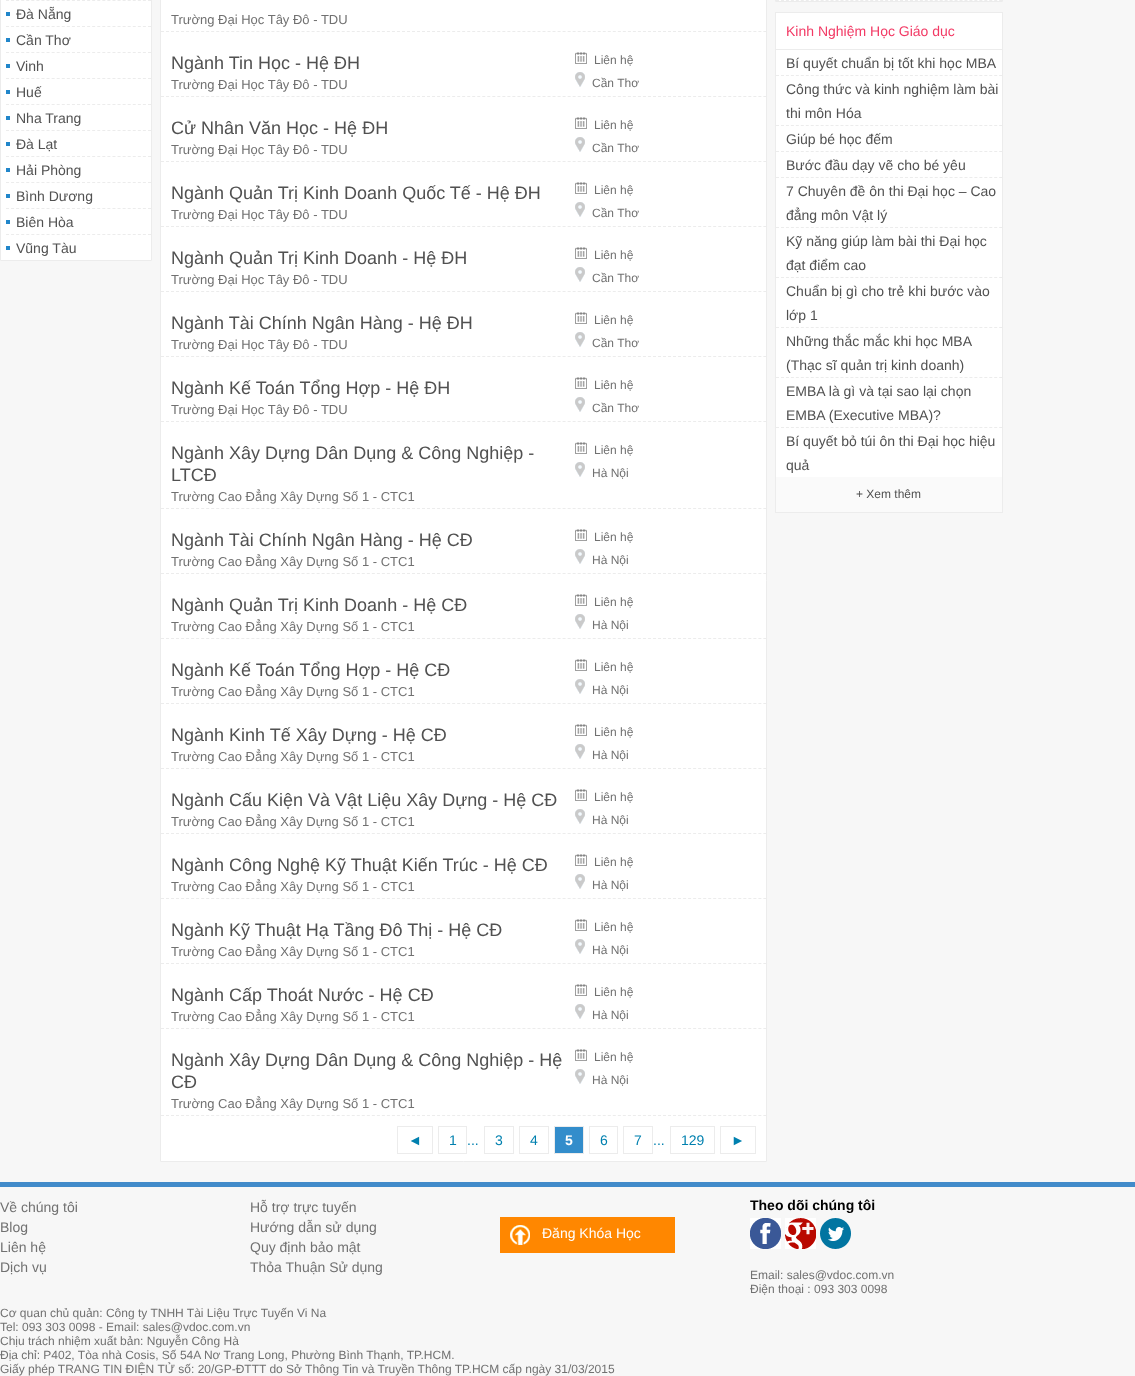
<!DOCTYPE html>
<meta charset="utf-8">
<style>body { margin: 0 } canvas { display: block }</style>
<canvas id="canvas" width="1135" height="1376"></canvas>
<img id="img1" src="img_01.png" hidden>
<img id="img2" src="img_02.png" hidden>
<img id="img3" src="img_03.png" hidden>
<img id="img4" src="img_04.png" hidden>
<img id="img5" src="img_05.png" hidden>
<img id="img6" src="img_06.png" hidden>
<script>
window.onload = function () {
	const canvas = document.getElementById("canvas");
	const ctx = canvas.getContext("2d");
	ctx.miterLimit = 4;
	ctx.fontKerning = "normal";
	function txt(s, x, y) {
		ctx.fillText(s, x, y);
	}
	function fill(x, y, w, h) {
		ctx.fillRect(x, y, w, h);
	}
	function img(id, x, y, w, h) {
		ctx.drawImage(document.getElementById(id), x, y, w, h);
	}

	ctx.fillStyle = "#F7F7F7";
	fill(0, 0, 1135, 1376);
	ctx.fillStyle = "#FFFFFF";
	ctx.beginPath();
	ctx.rect(0.5, -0.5, 151, 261);
	ctx.fill();
	ctx.strokeStyle = "#ECECEC";
	ctx.stroke();
	ctx.beginPath();
	ctx.moveTo(6, 0.5);
	ctx.lineTo(151, 0.5);
	ctx.setLineDash([3, 2.07]);
	ctx.stroke();
	ctx.beginPath();
	ctx.moveTo(6, 26.5);
	ctx.lineTo(151, 26.5);
	ctx.stroke();
	ctx.fillStyle = "#2186CA";
	fill(6, 12, 4, 4);
	ctx.beginPath();
	ctx.moveTo(6, 52.5);
	ctx.lineTo(151, 52.5);
	ctx.stroke();
	fill(6, 38, 4, 4);
	ctx.beginPath();
	ctx.moveTo(6, 78.5);
	ctx.lineTo(151, 78.5);
	ctx.stroke();
	fill(6, 64, 4, 4);
	ctx.beginPath();
	ctx.moveTo(6, 104.5);
	ctx.lineTo(151, 104.5);
	ctx.stroke();
	fill(6, 90, 4, 4);
	ctx.beginPath();
	ctx.moveTo(6, 130.5);
	ctx.lineTo(151, 130.5);
	ctx.stroke();
	fill(6, 116, 4, 4);
	ctx.beginPath();
	ctx.moveTo(6, 156.5);
	ctx.lineTo(151, 156.5);
	ctx.stroke();
	fill(6, 142, 4, 4);
	ctx.beginPath();
	ctx.moveTo(6, 182.5);
	ctx.lineTo(151, 182.5);
	ctx.stroke();
	fill(6, 168, 4, 4);
	ctx.beginPath();
	ctx.moveTo(6, 208.5);
	ctx.lineTo(151, 208.5);
	ctx.stroke();
	fill(6, 194, 4, 4);
	ctx.beginPath();
	ctx.moveTo(6, 234.5);
	ctx.lineTo(151, 234.5);
	ctx.stroke();
	fill(6, 220, 4, 4);
	fill(6, 246, 4, 4);
	ctx.fillStyle = "#FFFFFF";
	ctx.beginPath();
	ctx.rect(160.5, -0.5, 606, 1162);
	ctx.fill();
	ctx.setLineDash([]);
	ctx.stroke();
	ctx.beginPath();
	ctx.moveTo(161, 31.5);
	ctx.lineTo(766, 31.5);
	ctx.setLineDash([3, 2.02]);
	ctx.stroke();
	ctx.beginPath();
	ctx.moveTo(161, 96.5);
	ctx.lineTo(766, 96.5);
	ctx.stroke();
	img("img1", 575, 52, 12, 12);
	img("img2", 575, 72, 10, 15);
	ctx.beginPath();
	ctx.moveTo(161, 161.5);
	ctx.lineTo(766, 161.5);
	ctx.stroke();
	img("img1", 575, 117, 12, 12);
	img("img2", 575, 137, 10, 15);
	ctx.beginPath();
	ctx.moveTo(161, 226.5);
	ctx.lineTo(766, 226.5);
	ctx.stroke();
	img("img1", 575, 182, 12, 12);
	img("img2", 575, 202, 10, 15);
	ctx.beginPath();
	ctx.moveTo(161, 291.5);
	ctx.lineTo(766, 291.5);
	ctx.stroke();
	img("img1", 575, 247, 12, 12);
	img("img2", 575, 267, 10, 15);
	ctx.beginPath();
	ctx.moveTo(161, 356.5);
	ctx.lineTo(766, 356.5);
	ctx.stroke();
	img("img1", 575, 312, 12, 12);
	img("img2", 575, 332, 10, 15);
	ctx.beginPath();
	ctx.moveTo(161, 421.5);
	ctx.lineTo(766, 421.5);
	ctx.stroke();
	img("img1", 575, 377, 12, 12);
	img("img2", 575, 397, 10, 15);
	ctx.beginPath();
	ctx.moveTo(161, 508.5);
	ctx.lineTo(766, 508.5);
	ctx.stroke();
	img("img1", 575, 442, 12, 12);
	img("img2", 575, 462, 10, 15);
	ctx.beginPath();
	ctx.moveTo(161, 573.5);
	ctx.lineTo(766, 573.5);
	ctx.stroke();
	img("img1", 575, 529, 12, 12);
	img("img2", 575, 549, 10, 15);
	ctx.beginPath();
	ctx.moveTo(161, 638.5);
	ctx.lineTo(766, 638.5);
	ctx.stroke();
	img("img1", 575, 594, 12, 12);
	img("img2", 575, 614, 10, 15);
	ctx.beginPath();
	ctx.moveTo(161, 703.5);
	ctx.lineTo(766, 703.5);
	ctx.stroke();
	img("img1", 575, 659, 12, 12);
	img("img2", 575, 679, 10, 15);
	ctx.beginPath();
	ctx.moveTo(161, 768.5);
	ctx.lineTo(766, 768.5);
	ctx.stroke();
	img("img1", 575, 724, 12, 12);
	img("img2", 575, 744, 10, 15);
	ctx.beginPath();
	ctx.moveTo(161, 833.5);
	ctx.lineTo(766, 833.5);
	ctx.stroke();
	img("img1", 575, 789, 12, 12);
	img("img2", 575, 809, 10, 15);
	ctx.beginPath();
	ctx.moveTo(161, 898.5);
	ctx.lineTo(766, 898.5);
	ctx.stroke();
	img("img1", 575, 854, 12, 12);
	img("img2", 575, 874, 10, 15);
	ctx.beginPath();
	ctx.moveTo(161, 963.5);
	ctx.lineTo(766, 963.5);
	ctx.stroke();
	img("img1", 575, 919, 12, 12);
	img("img2", 575, 939, 10, 15);
	ctx.beginPath();
	ctx.moveTo(161, 1028.5);
	ctx.lineTo(766, 1028.5);
	ctx.stroke();
	img("img1", 575, 984, 12, 12);
	img("img2", 575, 1004, 10, 15);
	ctx.beginPath();
	ctx.moveTo(161, 1115.5);
	ctx.lineTo(766, 1115.5);
	ctx.stroke();
	img("img1", 575, 1049, 12, 12);
	img("img2", 575, 1069, 10, 15);
	ctx.setLineDash([]);
	ctx.strokeRect(397.5, 1126.5, 35, 27);
	ctx.strokeRect(438.5, 1126.5, 28, 27);
	ctx.strokeRect(484.5, 1126.5, 29, 27);
	ctx.strokeRect(519.5, 1126.5, 29, 27);
	ctx.fillStyle = "#338DCB";
	ctx.beginPath();
	ctx.rect(554.5, 1126.5, 29, 27);
	ctx.fill();
	ctx.stroke();
	ctx.strokeRect(589.5, 1126.5, 28, 27);
	ctx.strokeRect(623.5, 1126.5, 29, 27);
	ctx.strokeRect(670.5, 1126.5, 44, 27);
	ctx.strokeRect(720.5, 1126.5, 35, 27);
	ctx.fillStyle = "#FFFFFF";
	ctx.beginPath();
	ctx.rect(775.5, -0.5, 227, 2);
	ctx.fill();
	ctx.stroke();
	ctx.beginPath();
	ctx.moveTo(776, 0.5);
	ctx.lineTo(1002, 0.5);
	ctx.setLineDash([3, 1.96]);
	ctx.stroke();
	fill(776, 13, 226, 464);
	ctx.setLineDash([]);
	ctx.strokeRect(775.5, 12.5, 227, 500);
	ctx.fillStyle = "#ECECEC";
	fill(776, 49, 226, 1);
	ctx.beginPath();
	ctx.moveTo(776, 75.5);
	ctx.lineTo(1002, 75.5);
	ctx.setLineDash([3, 1.96]);
	ctx.stroke();
	ctx.beginPath();
	ctx.moveTo(776, 125.5);
	ctx.lineTo(1002, 125.5);
	ctx.stroke();
	ctx.beginPath();
	ctx.moveTo(776, 151.5);
	ctx.lineTo(1002, 151.5);
	ctx.stroke();
	ctx.beginPath();
	ctx.moveTo(776, 177.5);
	ctx.lineTo(1002, 177.5);
	ctx.stroke();
	ctx.beginPath();
	ctx.moveTo(776, 227.5);
	ctx.lineTo(1002, 227.5);
	ctx.stroke();
	ctx.beginPath();
	ctx.moveTo(776, 277.5);
	ctx.lineTo(1002, 277.5);
	ctx.stroke();
	ctx.beginPath();
	ctx.moveTo(776, 327.5);
	ctx.lineTo(1002, 327.5);
	ctx.stroke();
	ctx.beginPath();
	ctx.moveTo(776, 377.5);
	ctx.lineTo(1002, 377.5);
	ctx.stroke();
	ctx.beginPath();
	ctx.moveTo(776, 427.5);
	ctx.lineTo(1002, 427.5);
	ctx.stroke();
	ctx.fillStyle = "#FAFAFA";
	fill(776, 477, 226, 35);
	ctx.fillStyle = "#428BCA";
	fill(0, 1182, 1135, 5);
	ctx.fillStyle = "#FF8700";
	fill(500, 1217, 175, 36);
	img("img3", 510, 1225, 20, 20);
	img("img4", 750, 1218, 31, 31);
	img("img5", 785, 1218, 31, 31);
	img("img6", 820, 1218, 31, 31);
	ctx.font = "14px Liberation Sans";
	ctx.fillStyle = "#515151";
	txt("Đà Nẵng", 16, 19);
	txt("Cần Thơ", 16, 45);
	txt("Vinh", 16, 71);
	txt("Huế", 16, 97);
	txt("Nha Trang", 16, 123);
	txt("Đà Lạt", 16, 149);
	txt("Hải Phòng", 16, 175);
	txt("Bình Dương", 16, 201);
	txt("Biên Hòa", 16, 227);
	txt("Vũng Tàu", 16, 253);
	ctx.font = "13px Liberation Sans";
	ctx.fillStyle = "#717171";
	txt("Trường Đại Học Tây Đô - TDU", 171, 24);
	ctx.font = "18px Liberation Sans";
	ctx.fillStyle = "#515151";
	txt("Ngành Tin Học - Hệ ĐH", 171, 69);
	ctx.font = "13px Liberation Sans";
	ctx.fillStyle = "#717171";
	txt("Trường Đại Học Tây Đô - TDU", 171, 89);
	ctx.font = "12px Liberation Sans";
	txt("Liên hệ", 594, 64);
	txt("Cần Thơ", 592, 87);
	ctx.font = "18px Liberation Sans";
	ctx.fillStyle = "#515151";
	txt("Cử Nhân Văn Học - Hệ ĐH", 171, 134);
	ctx.font = "13px Liberation Sans";
	ctx.fillStyle = "#717171";
	txt("Trường Đại Học Tây Đô - TDU", 171, 154);
	ctx.font = "12px Liberation Sans";
	txt("Liên hệ", 594, 129);
	txt("Cần Thơ", 592, 152);
	ctx.font = "18px Liberation Sans";
	ctx.fillStyle = "#515151";
	txt("Ngành Quản Trị Kinh Doanh Quốc Tế - Hệ ĐH", 171, 199);
	ctx.font = "13px Liberation Sans";
	ctx.fillStyle = "#717171";
	txt("Trường Đại Học Tây Đô - TDU", 171, 219);
	ctx.font = "12px Liberation Sans";
	txt("Liên hệ", 594, 194);
	txt("Cần Thơ", 592, 217);
	ctx.font = "18px Liberation Sans";
	ctx.fillStyle = "#515151";
	txt("Ngành Quản Trị Kinh Doanh - Hệ ĐH", 171, 264);
	ctx.font = "13px Liberation Sans";
	ctx.fillStyle = "#717171";
	txt("Trường Đại Học Tây Đô - TDU", 171, 284);
	ctx.font = "12px Liberation Sans";
	txt("Liên hệ", 594, 259);
	txt("Cần Thơ", 592, 282);
	ctx.font = "18px Liberation Sans";
	ctx.fillStyle = "#515151";
	txt("Ngành Tài Chính Ngân Hàng - Hệ ĐH", 171, 329);
	ctx.font = "13px Liberation Sans";
	ctx.fillStyle = "#717171";
	txt("Trường Đại Học Tây Đô - TDU", 171, 349);
	ctx.font = "12px Liberation Sans";
	txt("Liên hệ", 594, 324);
	txt("Cần Thơ", 592, 347);
	ctx.font = "18px Liberation Sans";
	ctx.fillStyle = "#515151";
	txt("Ngành Kế Toán Tổng Hợp - Hệ ĐH", 171, 394);
	ctx.font = "13px Liberation Sans";
	ctx.fillStyle = "#717171";
	txt("Trường Đại Học Tây Đô - TDU", 171, 414);
	ctx.font = "12px Liberation Sans";
	txt("Liên hệ", 594, 389);
	txt("Cần Thơ", 592, 412);
	ctx.font = "18px Liberation Sans";
	ctx.fillStyle = "#515151";
	txt("Ngành Xây Dựng Dân Dụng & Công Nghiệp -", 171, 459);
	txt("LTCĐ", 171, 481);
	ctx.font = "13px Liberation Sans";
	ctx.fillStyle = "#717171";
	txt("Trường Cao Đẳng Xây Dựng Số 1 - CTC1", 171, 501);
	ctx.font = "12px Liberation Sans";
	txt("Liên hệ", 594, 454);
	txt("Hà Nội", 592, 477);
	ctx.font = "18px Liberation Sans";
	ctx.fillStyle = "#515151";
	txt("Ngành Tài Chính Ngân Hàng - Hệ CĐ", 171, 546);
	ctx.font = "13px Liberation Sans";
	ctx.fillStyle = "#717171";
	txt("Trường Cao Đẳng Xây Dựng Số 1 - CTC1", 171, 566);
	ctx.font = "12px Liberation Sans";
	txt("Liên hệ", 594, 541);
	txt("Hà Nội", 592, 564);
	ctx.font = "18px Liberation Sans";
	ctx.fillStyle = "#515151";
	txt("Ngành Quản Trị Kinh Doanh - Hệ CĐ", 171, 611);
	ctx.font = "13px Liberation Sans";
	ctx.fillStyle = "#717171";
	txt("Trường Cao Đẳng Xây Dựng Số 1 - CTC1", 171, 631);
	ctx.font = "12px Liberation Sans";
	txt("Liên hệ", 594, 606);
	txt("Hà Nội", 592, 629);
	ctx.font = "18px Liberation Sans";
	ctx.fillStyle = "#515151";
	txt("Ngành Kế Toán Tổng Hợp - Hệ CĐ", 171, 676);
	ctx.font = "13px Liberation Sans";
	ctx.fillStyle = "#717171";
	txt("Trường Cao Đẳng Xây Dựng Số 1 - CTC1", 171, 696);
	ctx.font = "12px Liberation Sans";
	txt("Liên hệ", 594, 671);
	txt("Hà Nội", 592, 694);
	ctx.font = "18px Liberation Sans";
	ctx.fillStyle = "#515151";
	txt("Ngành Kinh Tế Xây Dựng - Hệ CĐ", 171, 741);
	ctx.font = "13px Liberation Sans";
	ctx.fillStyle = "#717171";
	txt("Trường Cao Đẳng Xây Dựng Số 1 - CTC1", 171, 761);
	ctx.font = "12px Liberation Sans";
	txt("Liên hệ", 594, 736);
	txt("Hà Nội", 592, 759);
	ctx.font = "18px Liberation Sans";
	ctx.fillStyle = "#515151";
	txt("Ngành Cấu Kiện Và Vật Liệu Xây Dựng - Hệ CĐ", 171, 806);
	ctx.font = "13px Liberation Sans";
	ctx.fillStyle = "#717171";
	txt("Trường Cao Đẳng Xây Dựng Số 1 - CTC1", 171, 826);
	ctx.font = "12px Liberation Sans";
	txt("Liên hệ", 594, 801);
	txt("Hà Nội", 592, 824);
	ctx.font = "18px Liberation Sans";
	ctx.fillStyle = "#515151";
	txt("Ngành Công Nghệ Kỹ Thuật Kiến Trúc - Hệ CĐ", 171, 871);
	ctx.font = "13px Liberation Sans";
	ctx.fillStyle = "#717171";
	txt("Trường Cao Đẳng Xây Dựng Số 1 - CTC1", 171, 891);
	ctx.font = "12px Liberation Sans";
	txt("Liên hệ", 594, 866);
	txt("Hà Nội", 592, 889);
	ctx.font = "18px Liberation Sans";
	ctx.fillStyle = "#515151";
	txt("Ngành Kỹ Thuật Hạ Tầng Đô Thị - Hệ CĐ", 171, 936);
	ctx.font = "13px Liberation Sans";
	ctx.fillStyle = "#717171";
	txt("Trường Cao Đẳng Xây Dựng Số 1 - CTC1", 171, 956);
	ctx.font = "12px Liberation Sans";
	txt("Liên hệ", 594, 931);
	txt("Hà Nội", 592, 954);
	ctx.font = "18px Liberation Sans";
	ctx.fillStyle = "#515151";
	txt("Ngành Cấp Thoát Nước - Hệ CĐ", 171, 1001);
	ctx.font = "13px Liberation Sans";
	ctx.fillStyle = "#717171";
	txt("Trường Cao Đẳng Xây Dựng Số 1 - CTC1", 171, 1021);
	ctx.font = "12px Liberation Sans";
	txt("Liên hệ", 594, 996);
	txt("Hà Nội", 592, 1019);
	ctx.font = "18px Liberation Sans";
	ctx.fillStyle = "#515151";
	txt("Ngành Xây Dựng Dân Dụng & Công Nghiệp - Hệ", 171, 1066);
	txt("CĐ", 171, 1088);
	ctx.font = "13px Liberation Sans";
	ctx.fillStyle = "#717171";
	txt("Trường Cao Đẳng Xây Dựng Số 1 - CTC1", 171, 1108);
	ctx.font = "12px Liberation Sans";
	txt("Liên hệ", 594, 1061);
	txt("Hà Nội", 592, 1084);
	ctx.font = "14px Liberation Sans";
	ctx.fillStyle = "#0080AF";
	txt("◄", 408, 1145);
	txt("1", 449, 1145);
	txt("...", 467, 1145);
	txt("3", 495, 1145);
	txt("4", 530, 1145);
	ctx.font = "bold 14px Liberation Sans";
	ctx.fillStyle = "#FFFFFF";
	txt("5", 565, 1145);
	ctx.font = "14px Liberation Sans";
	ctx.fillStyle = "#0080AF";
	txt("6", 600, 1145);
	txt("7", 634, 1145);
	txt("...", 653, 1145);
	txt("129", 681, 1145);
	txt("►", 731, 1145);
	ctx.fillStyle = "#F23964";
	txt("Kinh Nghiệm Học Giáo dục", 786, 36);
	ctx.fillStyle = "#515151";
	txt("Bí quyết chuẩn bị tốt khi học MBA", 786, 68);
	txt("Công thức và kinh nghiệm làm bài", 786, 94);
	txt("thi môn Hóa", 786, 118);
	txt("Giúp bé học đếm", 786, 144);
	txt("Bước đầu dạy vẽ cho bé yêu", 786, 170);
	txt("7 Chuyên đề ôn thi Đại học – Cao", 786, 196);
	txt("đẳng môn Vật lý", 786, 220);
	txt("Kỹ năng giúp làm bài thi Đại học", 786, 246);
	txt("đạt điểm cao", 786, 270);
	txt("Chuẩn bị gì cho trẻ khi bước vào", 786, 296);
	txt("lớp 1", 786, 320);
	txt("Những thắc mắc khi học MBA", 786, 346);
	txt("(Thạc sĩ quản trị kinh doanh)", 786, 370);
	txt("EMBA là gì và tại sao lại chọn", 786, 396);
	txt("EMBA (Executive MBA)?", 786, 420);
	txt("Bí quyết bỏ túi ôn thi Đại học hiệu", 786, 446);
	txt("quả", 786, 470);
	ctx.font = "12px Liberation Sans";
	txt("+ Xem thêm", 856, 498);
	ctx.font = "14px Liberation Sans";
	ctx.fillStyle = "#717171";
	txt("Về chúng tôi", 0, 1212);
	txt("Blog", 0, 1232);
	txt("Liên hệ", 0, 1252);
	txt("Dịch vụ", 0, 1272);
	txt("Hỗ trợ trực tuyến", 250, 1212);
	txt("Hướng dẫn sử dụng", 250, 1232);
	txt("Quy định bảo mật", 250, 1252);
	txt("Thỏa Thuận Sử dụng", 250, 1272);
	ctx.fillStyle = "#FFFFFF";
	txt("Đăng Khóa Học", 542, 1238);
	ctx.font = "bold 14px Liberation Sans";
	ctx.fillStyle = "#000000";
	txt("Theo dõi chúng tôi", 750, 1210);
	ctx.font = "12px Liberation Sans";
	ctx.fillStyle = "#717171";
	txt("Email: sales@vdoc.com.vn", 750, 1279);
	txt("Điện thoại : 093 303 0098", 750, 1293);
	txt("Cơ quan chủ quản: Công ty TNHH Tài Liệu Trực Tuyến Vi Na", 0, 1317);
	txt("Tel: 093 303 0098 - Email: sales@vdoc.com.vn", 0, 1331);
	txt("Chịu trách nhiệm xuất bản: Nguyễn Công Hà", 0, 1345);
	txt("Địa chỉ: P402, Tòa nhà Cosis, Số 54A Nơ Trang Long, Phường Bình Thạnh, TP.HCM.", 0, 1359);
	txt("Giấy phép TRANG TIN ĐIỆN TỬ số: 20/GP-ĐTTT do Sở Thông Tin và Truyền Thông TP.HCM cấp ngày 31/03/2015", 0, 1373);
};
</script>
